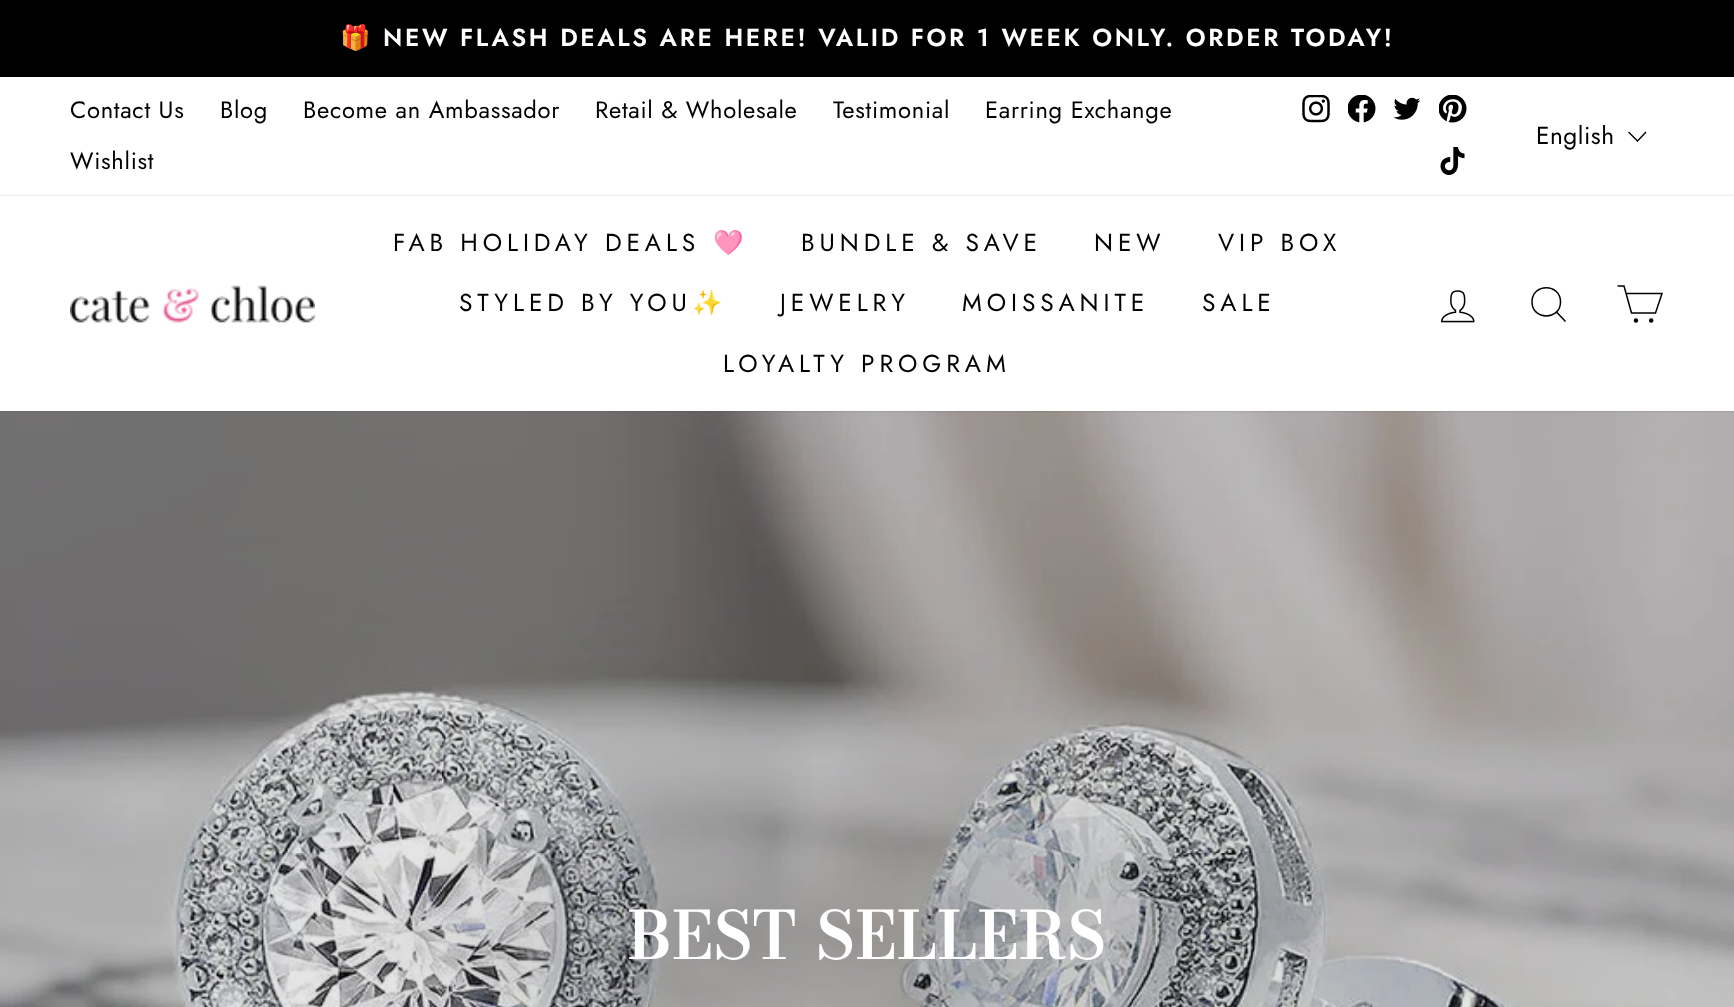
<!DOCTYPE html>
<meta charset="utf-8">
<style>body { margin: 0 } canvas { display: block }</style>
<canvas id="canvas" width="1734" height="1007"></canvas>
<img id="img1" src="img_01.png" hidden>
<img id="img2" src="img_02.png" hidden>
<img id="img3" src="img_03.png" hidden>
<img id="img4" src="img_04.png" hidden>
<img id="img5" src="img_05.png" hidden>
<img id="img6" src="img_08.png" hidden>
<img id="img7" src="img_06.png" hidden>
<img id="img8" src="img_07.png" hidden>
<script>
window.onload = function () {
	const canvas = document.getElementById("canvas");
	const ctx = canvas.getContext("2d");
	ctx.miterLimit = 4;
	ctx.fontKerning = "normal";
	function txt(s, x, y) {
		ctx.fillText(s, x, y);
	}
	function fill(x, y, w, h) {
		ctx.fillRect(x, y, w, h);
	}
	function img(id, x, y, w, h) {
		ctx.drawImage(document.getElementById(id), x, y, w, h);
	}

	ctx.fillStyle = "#FFFFFF";
	fill(0, 0, 1734, 1007);
	ctx.fillStyle = "#000000";
	fill(0, 0, 1734, 77);
	img("img1", 1302, 95, 28, 28);
	img("img2", 1348, 95, 28, 28);
	img("img3", 1393, 97, 28, 23);
	img("img4", 1439, 95, 28, 28);
	img("img5", 1440, 147, 25, 28);
	ctx.beginPath();
	ctx.moveTo(1628.5, 132);
	ctx.lineTo(1637.5, 141);
	ctx.lineTo(1646, 132);
	ctx.strokeStyle = "#000000";
	ctx.lineWidth = 1.4;
	ctx.stroke();
	img("img6", 0, 411, 1734, 596);
	ctx.save();
	ctx.beginPath();
	ctx.moveTo(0, 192);
	ctx.lineTo(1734, 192);
	ctx.lineTo(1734, 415);
	ctx.lineTo(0, 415);
	ctx.closePath();
	ctx.moveTo(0, 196);
	ctx.lineTo(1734, 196);
	ctx.lineTo(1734, 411);
	ctx.lineTo(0, 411);
	ctx.closePath();
	ctx.clip("evenodd");
	ctx.fillStyle = "rgba(0, 0, 0, 0.2)";
	ctx.filter = "blur(1px)";
	ctx.beginPath();
	ctx.rect(0, 196, 1734, 215);
	ctx.fill();
	ctx.filter = "none";
	ctx.restore();
	img("img7", 70, 285, 245, 38);
	img("img8", 1441, 290, 34, 33);
	ctx.beginPath();
	ctx.moveTo(1560.5, 302);
	ctx.bezierCurveTo(1560.5, 320.5, 1532, 320.5, 1532, 302);
	ctx.bezierCurveTo(1532, 283, 1560.5, 283, 1560.5, 302);
	ctx.closePath();
	ctx.moveTo(1565.5, 321.5);
	ctx.lineTo(1556.5, 312);
	ctx.lineWidth = 1.5;
	ctx.stroke();
	ctx.beginPath();
	ctx.moveTo(1626, 293.5);
	ctx.lineTo(1662, 293.5);
	ctx.lineTo(1655.5, 313);
	ctx.lineTo(1631.5, 313);
	ctx.lineTo(1624, 286);
	ctx.lineTo(1617.5, 286);
	ctx.stroke();
	ctx.beginPath();
	ctx.arc(1635.9, 320.6, 1.5, 0, Math.PI * 2);
	ctx.fill();
	ctx.stroke();
	ctx.beginPath();
	ctx.arc(1651.2, 320.6, 1.5, 0, Math.PI * 2);
	ctx.fill();
	ctx.stroke();
	ctx.letterSpacing = "2.62px";
	ctx.font = "bold 24.5px Noto Color Emoji";
	ctx.fillStyle = "#FFFFFF";
	txt("🎁", 340, 46);
	ctx.font = "600 24.5px Jost";
	txt("NEW FLASH DEALS ARE HERE! VALID FOR 1 WEEK ONLY. ORDER TODAY!", 383, 46);
	ctx.letterSpacing = "0.7px";
	ctx.font = "23.75px Jost";
	ctx.fillStyle = "#000000";
	txt("Contact Us", 70, 118);
	txt("Blog", 220, 118);
	txt("Become an Ambassador", 303, 118);
	txt("Retail & Wholesale", 595, 118);
	txt("Testimonial", 833, 118);
	txt("Earring Exchange", 985, 118);
	txt("Wishlist", 70, 169);
	ctx.letterSpacing = "0.5px";
	ctx.font = "24.5px Jost";
	txt("English", 1536, 144);
	ctx.letterSpacing = "4.9px";
	txt("FAB HOLIDAY DEALS", 393, 251);
	ctx.font = "24.5px Noto Color Emoji";
	txt("🩷", 713, 251);
	ctx.font = "24.5px Jost";
	txt("BUNDLE & SAVE", 801, 251);
	txt("NEW", 1094, 251);
	txt("VIP BOX", 1218, 251);
	txt("STYLED BY YOU", 459, 311);
	ctx.font = "24.5px Noto Color Emoji";
	txt("✨", 692, 311);
	ctx.font = "24.5px Jost";
	txt("JEWELRY", 780, 311);
	txt("MOISSANITE", 962, 311);
	txt("SALE", 1202, 311);
	txt("LOYALTY PROGRAM", 723, 372);
	ctx.letterSpacing = "3.25px";
	ctx.font = "bold 63.5px Bodoni Moda";
	ctx.fillStyle = "#FFFFFF";
	txt("BEST SELLERS", 628, 959);
};
</script>
